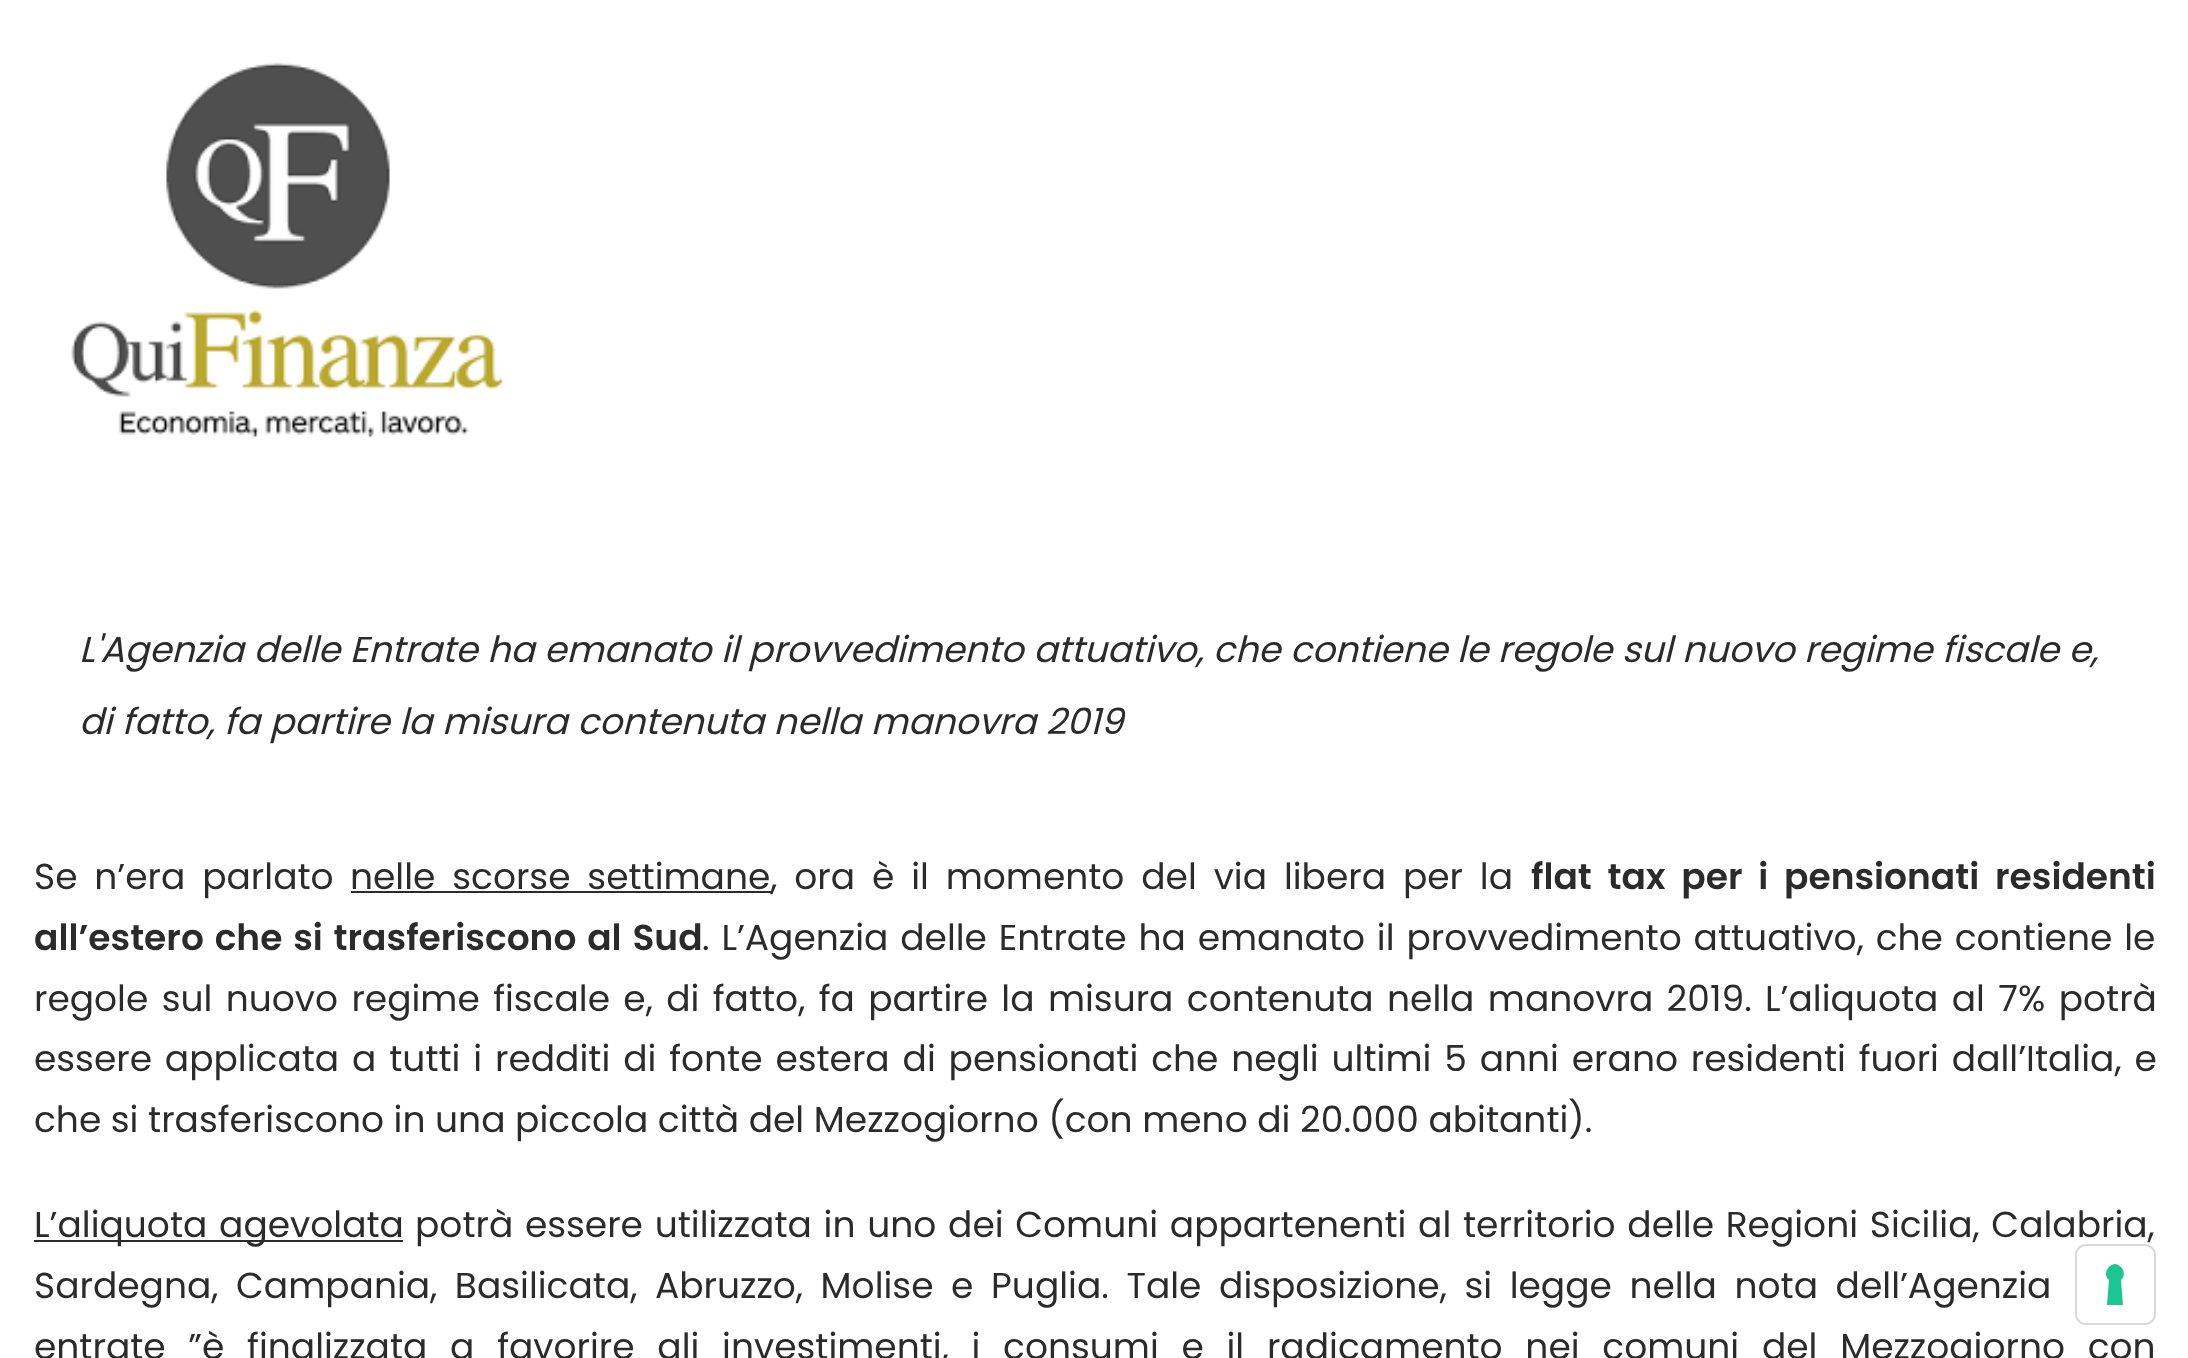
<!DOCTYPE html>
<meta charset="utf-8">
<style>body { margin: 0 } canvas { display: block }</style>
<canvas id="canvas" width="2188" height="1358"></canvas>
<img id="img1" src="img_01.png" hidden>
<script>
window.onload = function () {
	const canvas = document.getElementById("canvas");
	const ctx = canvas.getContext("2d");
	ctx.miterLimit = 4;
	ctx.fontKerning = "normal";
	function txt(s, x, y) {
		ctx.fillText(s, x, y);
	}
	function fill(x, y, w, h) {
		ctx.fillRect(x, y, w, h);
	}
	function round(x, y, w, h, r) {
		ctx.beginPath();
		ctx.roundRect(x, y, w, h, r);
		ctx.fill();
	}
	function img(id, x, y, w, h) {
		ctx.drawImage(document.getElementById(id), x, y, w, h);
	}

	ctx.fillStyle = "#FFFFFF";
	fill(0, 0, 2188, 1358);
	img("img1", 71, 62, 433, 377);
	ctx.fillStyle = "#2B2B2B";
	fill(351, 891, 421, 2);
	fill(34, 1240, 369, 2);
	ctx.font = "italic 36px Poppins";
	txt("L'Agenzia delle Entrate ha emanato il provvedimento attuativo, che contiene le regole sul nuovo regime fiscale e,", 79, 662);
	txt("di fatto, fa partire la misura contenuta nella manovra 2019", 79, 734);
	ctx.wordSpacing = "7.25px";
	ctx.font = "36px Poppins";
	txt("Se n’era parlato", 34, 889);
	txt("nelle scorse settimane, ora è il momento del via libera per la", 350, 889);
	ctx.font = "600 36px Poppins";
	txt("flat tax per i pensionati residenti", 1531, 889);
	ctx.wordSpacing = "2.25px";
	txt("all’estero che si trasferiscono al Sud", 34, 950);
	ctx.font = "36px Poppins";
	txt(". L’Agenzia delle Entrate ha emanato il provvedimento attuativo, che contiene le", 702, 950);
	ctx.wordSpacing = "3.75px";
	txt("regole sul nuovo regime fiscale e, di fatto, fa partire la misura contenuta nella manovra 2019. L’aliquota al 7% potrà", 34, 1011);
	ctx.wordSpacing = "3.25px";
	txt("essere applicata a tutti i redditi di fonte estera di pensionati che negli ultimi 5 anni erano residenti fuori dall’Italia, e", 34, 1071);
	ctx.wordSpacing = "0px";
	txt("che si trasferiscono in una piccola città del Mezzogiorno (con meno di 20.000 abitanti).", 34, 1132);
	ctx.wordSpacing = "2.1px";
	txt("L’aliquota agevolata", 34, 1237);
	txt("potrà essere utilizzata in uno dei Comuni appartenenti al territorio delle Regioni Sicilia, Calabria,", 415, 1237);
	ctx.wordSpacing = "8px";
	txt("Sardegna, Campania, Basilicata, Abruzzo, Molise e Puglia. Tale disposizione, si legge nella nota dell’Agenzia", 34, 1298);
	ctx.wordSpacing = "13.1px";
	txt("entrate ”è finalizzata a favorire gli investimenti, i consumi e il radicamento nei comuni del Mezzogiorno con", 34, 1359);
	ctx.beginPath();
	ctx.roundRect(2076, 1245, 79, 79, 10);
	ctx.strokeStyle = "rgba(0, 0, 0, 0.15)";
	ctx.lineWidth = 2;
	ctx.stroke();
	ctx.fillStyle = "#FFFFFF";
	round(2077, 1247, 76, 76, 9);
	ctx.fillStyle = "#1CC691";
	ctx.beginPath();
	ctx.moveTo(2115, 1264);
	ctx.bezierCurveTo(2123, 1265, 2127, 1275, 2121, 1280);
	ctx.lineTo(2123, 1305);
	ctx.lineTo(2107, 1305);
	ctx.lineTo(2109, 1280);
	ctx.bezierCurveTo(2103, 1275, 2107, 1265, 2115, 1264);
	ctx.closePath();
	ctx.fill("evenodd");
};
</script>
